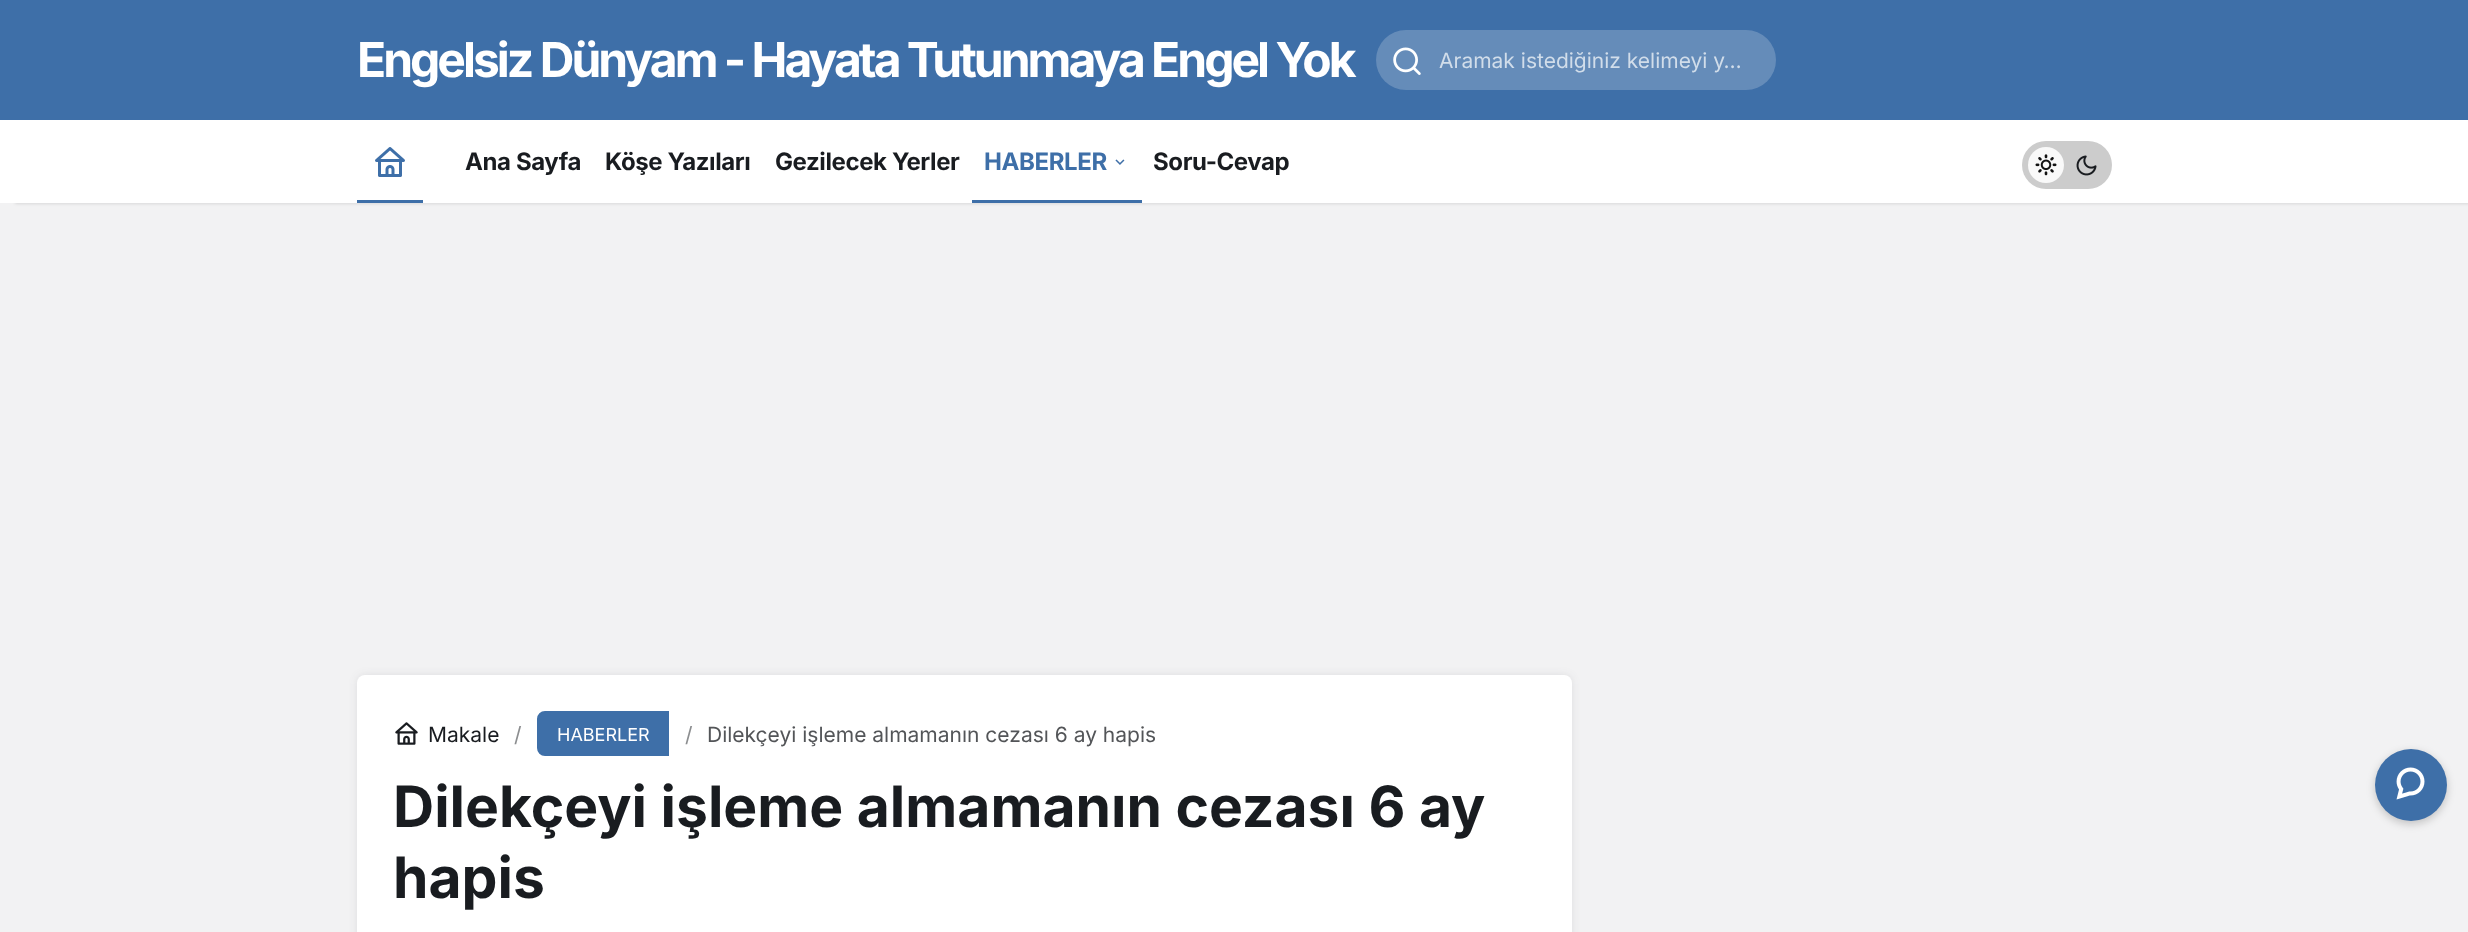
<!DOCTYPE html>
<meta charset="utf-8">
<style>body { margin: 0 } canvas { display: block }</style>
<canvas id="canvas" width="2468" height="932"></canvas>
<img id="img1" src="img_01.png" hidden>
<img id="img2" src="img_02.png" hidden>
<img id="img3" src="img_03.png" hidden>
<img id="img4" src="img_05.png" hidden>
<img id="img5" src="img_04.png" hidden>
<img id="img6" src="img_06.png" hidden>
<img id="img7" src="img_07.png" hidden>
<img id="img8" src="img_08.png" hidden>
<script>
window.onload = function () {
	const canvas = document.getElementById("canvas");
	const ctx = canvas.getContext("2d");
	ctx.miterLimit = 4;
	ctx.fontKerning = "normal";
	function txt(s, x, y) {
		ctx.fillText(s, x, y);
	}
	function fill(x, y, w, h) {
		ctx.fillRect(x, y, w, h);
	}
	function round(x, y, w, h, r) {
		ctx.beginPath();
		ctx.roundRect(x, y, w, h, r);
		ctx.fill();
	}
	function img(id, x, y, w, h) {
		ctx.drawImage(document.getElementById(id), x, y, w, h);
	}

	ctx.fillStyle = "#F2F2F3";
	fill(0, 0, 2468, 932);
	ctx.fillStyle = "rgba(0, 0, 0, 0.1)";
	ctx.filter = "blur(1.5px)";
	ctx.beginPath();
	ctx.rect(15, 122, 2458, 82);
	ctx.fill();
	ctx.filter = "none";
	ctx.fillStyle = "#3E6FA8";
	fill(0, 0, 2468, 120);
	ctx.fillStyle = "#658CB9";
	round(1376, 30, 400, 60, 30);
	img("img1", 1393, 47, 28, 28);
	ctx.fillStyle = "#FFFFFF";
	fill(0, 120, 2468, 83);
	img("img2", 375, 147, 30, 30);
	ctx.fillStyle = "#3E6FA8";
	fill(357, 200, 66, 3);
	img("img3", 1115, 159, 10, 6);
	fill(972, 200, 170, 3);
	ctx.fillStyle = "#CCCCCC";
	round(2022, 141, 90, 48, 24);
	img("img4", 2035, 154, 22, 22);
	ctx.fillStyle = "rgba(255, 255, 255, 0.87)";
	ctx.beginPath();
	ctx.arc(2046, 165, 18, 0, Math.PI * 2);
	ctx.fill();
	img("img5", 2035, 154, 22, 22);
	img("img6", 2076, 155, 21, 21);
	ctx.fillStyle = "rgba(50, 53, 61, 0.1)";
	ctx.filter = "blur(4px)";
	ctx.beginPath();
	ctx.roundRect(357, 675, 1215, 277, 8);
	ctx.fill();
	ctx.filter = "none";
	ctx.fillStyle = "#FFFFFF";
	round(357, 675, 1215, 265, 8);
	img("img7", 395, 722, 23, 23);
	ctx.fillStyle = "#3E6FA8";
	ctx.beginPath();
	ctx.roundRect(538, 712, 130, 43, [7, 0, 0, 7]);
	ctx.fill();
	ctx.strokeStyle = "#3E6FA8";
	ctx.lineWidth = 2;
	ctx.stroke();
	ctx.fillStyle = "rgba(0, 0, 0, 0.2)";
	ctx.filter = "blur(4.5px)";
	ctx.beginPath();
	ctx.roundRect(2375, 752, 72, 72, 36);
	ctx.fill();
	ctx.filter = "none";
	ctx.fillStyle = "#3E6FA8";
	ctx.beginPath();
	ctx.arc(2411, 785, 36, 0, Math.PI * 2);
	ctx.fill();
	img("img8", 2396, 767, 29, 33);
	ctx.letterSpacing = "-3px";
	ctx.font = "bold 48px Inter";
	ctx.fillStyle = "#FFFFFF";
	txt("Engelsiz Dünyam - Hayata Tutunmaya Engel Yok", 357, 77);
	ctx.letterSpacing = "0px";
	ctx.font = "21px Inter";
	ctx.fillStyle = "#D1DDEA";
	txt("Aramak istediğiniz kelimeyi y…", 1439, 68);
	ctx.letterSpacing = "-0.4px";
	ctx.font = "bold 24px Inter";
	ctx.fillStyle = "#191C20";
	txt("Ana Sayfa", 465, 170);
	txt("Köşe Yazıları", 605, 170);
	txt("Gezilecek Yerler", 775, 170);
	ctx.fillStyle = "#3E6FA8";
	txt("HABERLER", 984, 170);
	ctx.fillStyle = "#191C20";
	txt("Soru-Cevap", 1153, 170);
	ctx.letterSpacing = "0px";
	ctx.font = "21px Inter";
	txt("Makale", 428, 742);
	ctx.fillStyle = "#8C8E90";
	txt("/", 514, 742);
	ctx.font = "18px Inter";
	ctx.fillStyle = "#FFFFFF";
	txt("HABERLER", 557, 741);
	ctx.font = "21px Inter";
	ctx.fillStyle = "#8C8E90";
	txt("/", 685, 742);
	ctx.fillStyle = "#535558";
	txt("Dilekçeyi işleme almamanın cezası 6 ay hapis", 707, 742);
	ctx.font = "bold 57px Inter";
	ctx.fillStyle = "#191C20";
	txt("Dilekçeyi işleme almamanın cezası 6 ay", 393, 827);
	txt("hapis", 393, 898);
};
</script>
